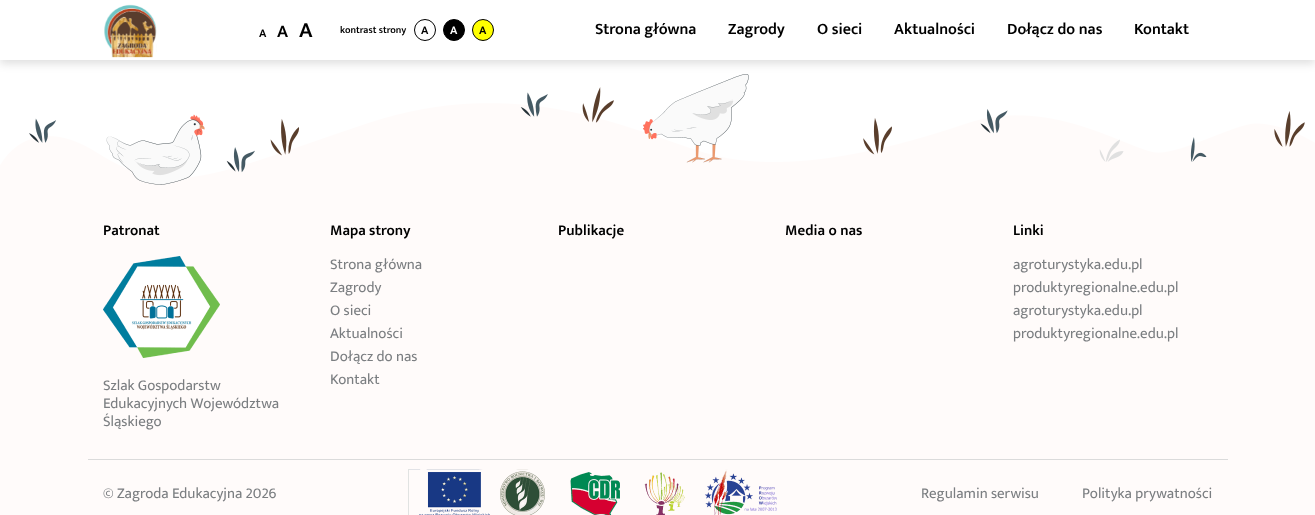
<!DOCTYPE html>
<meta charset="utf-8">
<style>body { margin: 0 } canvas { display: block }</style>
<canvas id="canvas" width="1315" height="515"></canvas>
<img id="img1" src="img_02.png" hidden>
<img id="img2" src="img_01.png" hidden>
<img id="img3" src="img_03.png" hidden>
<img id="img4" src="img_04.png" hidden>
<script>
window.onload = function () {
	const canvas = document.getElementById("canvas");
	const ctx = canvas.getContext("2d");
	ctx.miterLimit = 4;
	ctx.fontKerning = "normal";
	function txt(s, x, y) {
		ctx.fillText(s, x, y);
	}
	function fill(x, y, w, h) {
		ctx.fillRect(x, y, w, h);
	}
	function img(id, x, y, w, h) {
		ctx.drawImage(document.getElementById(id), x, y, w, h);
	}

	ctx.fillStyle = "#FFFFFF";
	fill(0, 0, 1315, 515);
	img("img1", 0, 74, 1315, 133);
	ctx.fillStyle = "rgba(0, 0, 0, 0.12)";
	ctx.filter = "blur(4px)";
	ctx.beginPath();
	ctx.rect(0, 4, 1315, 60);
	ctx.fill();
	ctx.filter = "none";
	ctx.fillStyle = "#FFFFFF";
	fill(0, 0, 1315, 60);
	img("img2", 104, 4, 53, 54);
	ctx.beginPath();
	ctx.arc(425, 30, 10.5, 0, Math.PI * 2);
	ctx.strokeStyle = "#000000";
	ctx.stroke();
	ctx.fillStyle = "#000000";
	ctx.beginPath();
	ctx.arc(454, 30, 10.5, 0, Math.PI * 2);
	ctx.fill();
	ctx.stroke();
	ctx.fillStyle = "#FFFF00";
	ctx.beginPath();
	ctx.arc(483, 30, 10.5, 0, Math.PI * 2);
	ctx.fill();
	ctx.stroke();
	ctx.fillStyle = "#FFFBFA";
	fill(0, 207, 1315, 308);
	img("img3", 103, 256, 117, 102);
	ctx.fillStyle = "#DBDBDB";
	fill(88, 459, 1140, 1);
	img("img4", 408, 469, 369, 46);
	ctx.font = "600 12px Mukta";
	ctx.fillStyle = "#000000";
	txt("A", 259, 37);
	ctx.font = "600 18px Mukta";
	txt("A", 277, 37);
	ctx.font = "600 22px Mukta";
	txt("A", 299, 37);
	ctx.font = "600 10px Mukta";
	txt("kontrast strony", 340, 33);
	ctx.font = "600 12px Mukta";
	txt("A", 421, 34);
	ctx.fillStyle = "#FFFFFF";
	txt("A", 450, 34);
	ctx.fillStyle = "#000000";
	txt("A", 479, 34);
	ctx.font = "600 16px Mukta";
	txt("Strona główna", 595, 34);
	txt("Zagrody", 728, 34);
	txt("O sieci", 817, 34);
	txt("Aktualności", 894, 34);
	txt("Dołącz do nas", 1007, 34);
	txt("Kontakt", 1134, 34);
	ctx.font = "600 15px Mukta";
	txt("Patronat", 103, 235);
	ctx.font = "15px Mukta";
	ctx.fillStyle = "#7B7E81";
	txt("Szlak Gospodarstw", 103, 390);
	txt("Edukacyjnych Województwa", 103, 408);
	txt("Śląskiego", 103, 426);
	ctx.font = "600 15px Mukta";
	ctx.fillStyle = "#000000";
	txt("Mapa strony", 330, 235);
	ctx.font = "15px Mukta";
	ctx.fillStyle = "#7B7E81";
	txt("Strona główna", 330, 269);
	txt("Zagrody", 330, 292);
	txt("O sieci", 330, 315);
	txt("Aktualności", 330, 338);
	txt("Dołącz do nas", 330, 361);
	txt("Kontakt", 330, 384);
	ctx.font = "600 15px Mukta";
	ctx.fillStyle = "#000000";
	txt("Publikacje", 558, 235);
	txt("Media o nas", 785, 235);
	txt("Linki", 1013, 235);
	ctx.font = "15px Mukta";
	ctx.fillStyle = "#7B7E81";
	txt("agroturystyka.edu.pl", 1013, 269);
	txt("produktyregionalne.edu.pl", 1013, 292);
	txt("agroturystyka.edu.pl", 1013, 315);
	txt("produktyregionalne.edu.pl", 1013, 338);
	txt("© Zagroda Edukacyjna 2026", 103, 498);
	txt("Regulamin serwisu", 921, 498);
	txt("Polityka prywatności", 1082, 498);
};
</script>
